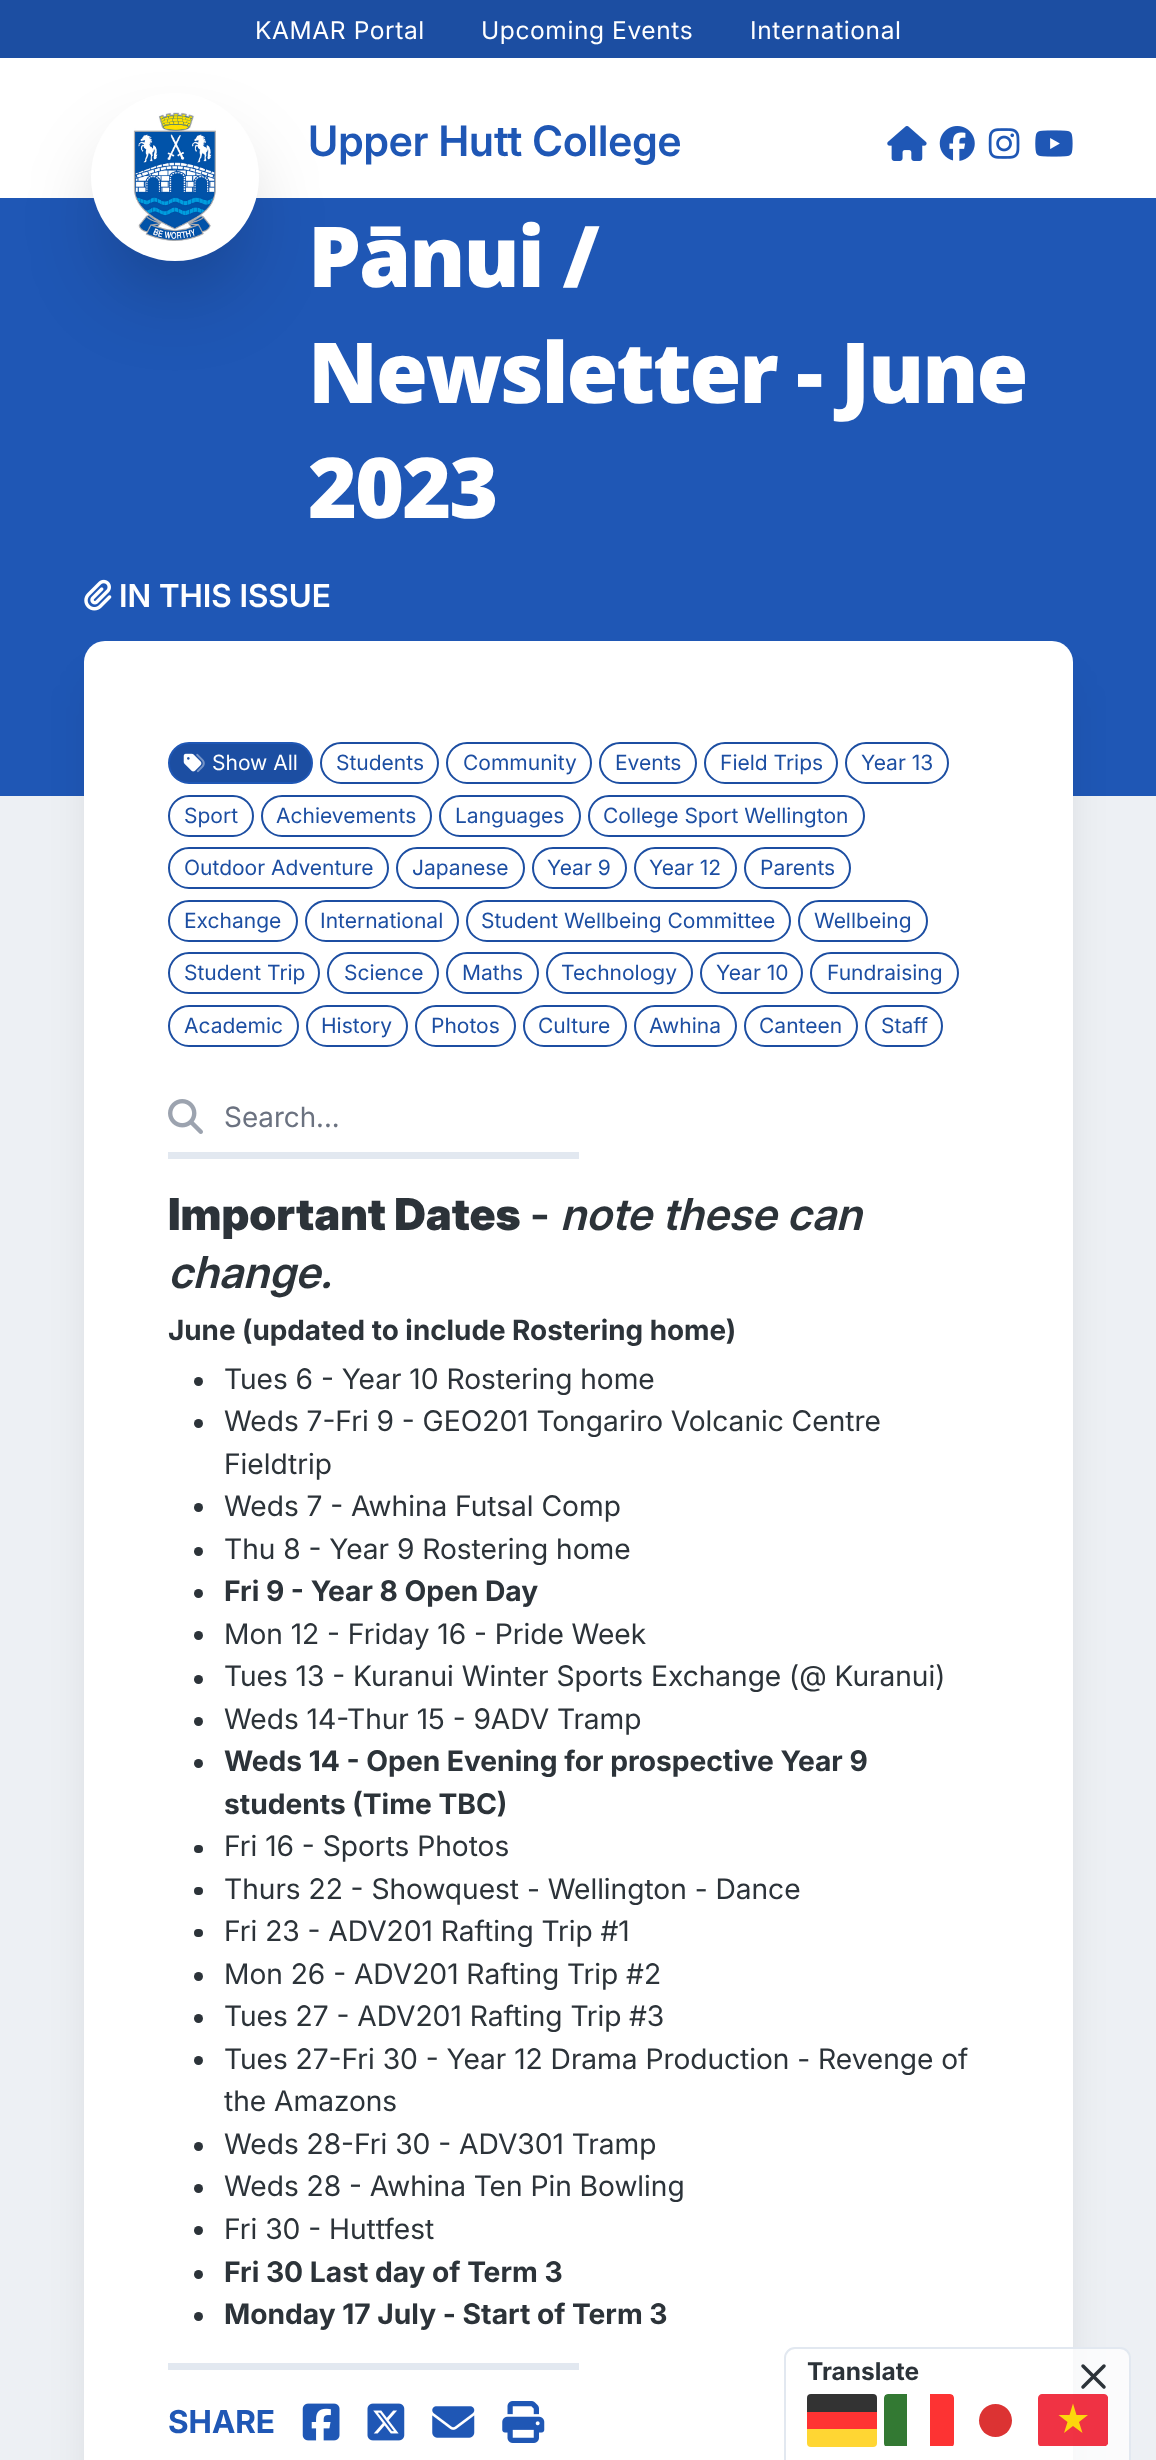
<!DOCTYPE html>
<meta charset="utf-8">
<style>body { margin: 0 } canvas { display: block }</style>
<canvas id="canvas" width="1156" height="2460"></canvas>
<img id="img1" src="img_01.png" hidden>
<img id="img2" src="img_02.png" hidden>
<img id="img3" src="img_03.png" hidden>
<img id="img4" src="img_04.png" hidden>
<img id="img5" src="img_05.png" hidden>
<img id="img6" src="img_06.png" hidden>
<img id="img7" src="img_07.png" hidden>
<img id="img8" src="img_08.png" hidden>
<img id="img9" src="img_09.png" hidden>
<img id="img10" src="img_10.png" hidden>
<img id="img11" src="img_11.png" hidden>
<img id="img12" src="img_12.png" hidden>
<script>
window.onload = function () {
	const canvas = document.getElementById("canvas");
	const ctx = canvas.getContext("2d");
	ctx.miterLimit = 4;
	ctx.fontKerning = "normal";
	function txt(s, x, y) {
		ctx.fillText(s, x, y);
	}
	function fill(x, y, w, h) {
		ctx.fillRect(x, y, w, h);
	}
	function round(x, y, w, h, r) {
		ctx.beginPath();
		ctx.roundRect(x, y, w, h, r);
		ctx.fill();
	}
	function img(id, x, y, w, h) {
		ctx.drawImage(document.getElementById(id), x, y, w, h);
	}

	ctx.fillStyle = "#EDF0F4";
	fill(0, 0, 1156, 2460);
	ctx.fillStyle = "#FFFFFF";
	fill(0, 58, 1156, 140);
	ctx.fillStyle = "#1F57B5";
	fill(0, 198, 1156, 598);
	ctx.fillStyle = "rgba(0, 0, 0, 0.25)";
	ctx.filter = "blur(44px)";
	ctx.beginPath();
	ctx.roundRect(112, 158, 126, 126, 63);
	ctx.fill();
	ctx.filter = "none";
	ctx.fillStyle = "#1C4EA2";
	fill(0, 0, 1156, 58);
	ctx.fillStyle = "#FFFFFF";
	ctx.beginPath();
	ctx.arc(175, 177, 84, 0, Math.PI * 2);
	ctx.fill();
	img("img1", 133, 112, 83, 129);
	img("img2", 887, 126, 40, 35);
	img("img3", 939, 126, 36, 35);
	img("img4", 988, 128, 32, 31);
	img("img5", 1035, 130, 38, 27);
	img("img6", 84, 579, 28, 32);
	ctx.fillStyle = "rgba(0, 0, 0, 0.1)";
	ctx.filter = "blur(22px)";
	ctx.beginPath();
	ctx.roundRect(93, 684, 971, 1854, 12);
	ctx.fill();
	ctx.filter = "none";
	ctx.fillStyle = "#FFFFFF";
	round(84, 641, 989, 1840, 21);
	ctx.fillStyle = "#1C4EA2";
	ctx.beginPath();
	ctx.roundRect(169, 743, 143, 40, 20);
	ctx.fill();
	ctx.strokeStyle = "#1F57B5";
	ctx.lineWidth = 2;
	ctx.stroke();
	img("img7", 183, 753, 22, 20);
	ctx.beginPath();
	ctx.roundRect(321, 743, 117, 40, 20);
	ctx.strokeStyle = "#1C4EA2";
	ctx.stroke();
	ctx.beginPath();
	ctx.roundRect(447, 743, 144, 40, 20);
	ctx.stroke();
	ctx.beginPath();
	ctx.roundRect(600, 743, 96, 40, 20);
	ctx.stroke();
	ctx.beginPath();
	ctx.roundRect(705, 743, 132, 40, 20);
	ctx.stroke();
	ctx.beginPath();
	ctx.roundRect(846, 743, 102, 40, 20);
	ctx.stroke();
	ctx.beginPath();
	ctx.roundRect(169, 796, 84, 40, 20);
	ctx.stroke();
	ctx.beginPath();
	ctx.roundRect(262, 796, 169, 40, 20);
	ctx.stroke();
	ctx.beginPath();
	ctx.roundRect(440, 796, 140, 40, 20);
	ctx.stroke();
	ctx.beginPath();
	ctx.roundRect(589, 796, 275, 40, 20);
	ctx.stroke();
	ctx.beginPath();
	ctx.roundRect(169, 848, 219, 40, 20);
	ctx.stroke();
	ctx.beginPath();
	ctx.roundRect(397, 848, 127, 40, 20);
	ctx.stroke();
	ctx.beginPath();
	ctx.roundRect(533, 848, 93, 40, 20);
	ctx.stroke();
	ctx.beginPath();
	ctx.roundRect(635, 848, 101, 40, 20);
	ctx.stroke();
	ctx.beginPath();
	ctx.roundRect(745, 848, 105, 40, 20);
	ctx.stroke();
	ctx.beginPath();
	ctx.roundRect(169, 901, 128, 40, 20);
	ctx.stroke();
	ctx.beginPath();
	ctx.roundRect(306, 901, 152, 40, 20);
	ctx.stroke();
	ctx.beginPath();
	ctx.roundRect(467, 901, 323, 40, 20);
	ctx.stroke();
	ctx.beginPath();
	ctx.roundRect(799, 901, 128, 40, 20);
	ctx.stroke();
	ctx.beginPath();
	ctx.roundRect(169, 953, 150, 40, 20);
	ctx.stroke();
	ctx.beginPath();
	ctx.roundRect(328, 953, 110, 40, 20);
	ctx.stroke();
	ctx.beginPath();
	ctx.roundRect(447, 953, 91, 40, 20);
	ctx.stroke();
	ctx.beginPath();
	ctx.roundRect(547, 953, 145, 40, 20);
	ctx.stroke();
	ctx.beginPath();
	ctx.roundRect(701, 953, 101, 40, 20);
	ctx.stroke();
	ctx.beginPath();
	ctx.roundRect(811, 953, 147, 40, 20);
	ctx.stroke();
	ctx.beginPath();
	ctx.roundRect(169, 1006, 129, 40, 20);
	ctx.stroke();
	ctx.beginPath();
	ctx.roundRect(307, 1006, 100, 40, 20);
	ctx.stroke();
	ctx.beginPath();
	ctx.roundRect(416, 1006, 99, 40, 20);
	ctx.stroke();
	ctx.beginPath();
	ctx.roundRect(524, 1006, 102, 40, 20);
	ctx.stroke();
	ctx.beginPath();
	ctx.roundRect(635, 1006, 101, 40, 20);
	ctx.stroke();
	ctx.beginPath();
	ctx.roundRect(745, 1006, 112, 40, 20);
	ctx.stroke();
	ctx.beginPath();
	ctx.roundRect(866, 1006, 76, 40, 20);
	ctx.stroke();
	img("img8", 168, 1099, 35, 35);
	ctx.fillStyle = "#E2E8F0";
	fill(168, 1152, 411, 7);
	ctx.fillStyle = "#2C3339";
	ctx.beginPath();
	ctx.arc(198.5, 1381.5, 4.5, 0, Math.PI * 2);
	ctx.fill();
	ctx.beginPath();
	ctx.arc(198.5, 1423.5, 4.5, 0, Math.PI * 2);
	ctx.fill();
	ctx.beginPath();
	ctx.arc(198.5, 1507.5, 4.5, 0, Math.PI * 2);
	ctx.fill();
	ctx.beginPath();
	ctx.arc(198.5, 1551.5, 4.5, 0, Math.PI * 2);
	ctx.fill();
	ctx.beginPath();
	ctx.arc(198.5, 1593.5, 4.5, 0, Math.PI * 2);
	ctx.fill();
	ctx.beginPath();
	ctx.arc(198.5, 1635.5, 4.5, 0, Math.PI * 2);
	ctx.fill();
	ctx.beginPath();
	ctx.arc(198.5, 1679.5, 4.5, 0, Math.PI * 2);
	ctx.fill();
	ctx.beginPath();
	ctx.arc(198.5, 1721.5, 4.5, 0, Math.PI * 2);
	ctx.fill();
	ctx.beginPath();
	ctx.arc(198.5, 1763.5, 4.5, 0, Math.PI * 2);
	ctx.fill();
	round(194, 1845, 9, 8, 4);
	round(194, 1887, 9, 8, 4);
	round(194, 1929, 9, 8, 4);
	ctx.beginPath();
	ctx.arc(198.5, 1976.5, 4.5, 0, Math.PI * 2);
	ctx.fill();
	ctx.beginPath();
	ctx.arc(198.5, 2018.5, 4.5, 0, Math.PI * 2);
	ctx.fill();
	ctx.beginPath();
	ctx.arc(198.5, 2060.5, 4.5, 0, Math.PI * 2);
	ctx.fill();
	ctx.beginPath();
	ctx.arc(198.5, 2146.5, 4.5, 0, Math.PI * 2);
	ctx.fill();
	ctx.beginPath();
	ctx.arc(198.5, 2188.5, 4.5, 0, Math.PI * 2);
	ctx.fill();
	ctx.beginPath();
	ctx.arc(198.5, 2230.5, 4.5, 0, Math.PI * 2);
	ctx.fill();
	ctx.beginPath();
	ctx.arc(198.5, 2274.5, 4.5, 0, Math.PI * 2);
	ctx.fill();
	ctx.beginPath();
	ctx.arc(198.5, 2316.5, 4.5, 0, Math.PI * 2);
	ctx.fill();
	ctx.fillStyle = "#E2E8F0";
	fill(168, 2363, 411, 7);
	img("img9", 302, 2403, 38, 38);
	img("img10", 367, 2403, 38, 38);
	img("img11", 432, 2406, 43, 32);
	img("img12", 502, 2401, 43, 42);
	ctx.fillStyle = "rgba(255, 255, 255, 0.75)";
	ctx.beginPath();
	ctx.roundRect(785, 2348, 345, 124, 10);
	ctx.fill();
	ctx.strokeStyle = "#E2E8F0";
	ctx.stroke();
	ctx.beginPath();
	ctx.moveTo(1083, 2387);
	ctx.lineTo(1104, 2366);
	ctx.moveTo(1083, 2366);
	ctx.lineTo(1104, 2387);
	ctx.strokeStyle = "#2C3339";
	ctx.lineWidth = 3.5;
	ctx.lineCap = "round";
	ctx.lineJoin = "round";
	ctx.stroke();
	ctx.fillStyle = "#333333";
	ctx.beginPath();
	ctx.roundRect(807, 2394, 70, 18, [4, 4, 0, 0]);
	ctx.fill();
	ctx.fillStyle = "#FF3333";
	fill(807, 2412, 70, 17);
	ctx.fillStyle = "#FFD633";
	ctx.beginPath();
	ctx.roundRect(807, 2429, 70, 18, [0, 0, 4, 4]);
	ctx.fill();
	ctx.save();
	ctx.beginPath();
	ctx.roundRect(884, 2394, 70, 53, 4);
	ctx.clip();
	ctx.fillStyle = "#337933";
	ctx.beginPath();
	ctx.roundRect(884, 2394, 23, 52, [4, 0, 0, 0]);
	ctx.fill();
	ctx.fillStyle = "#FD3333";
	ctx.beginPath();
	ctx.roundRect(930, 2394, 24, 52, [0, 4, 0, 0]);
	ctx.fill();
	ctx.restore();
	ctx.fillStyle = "#DC3333";
	ctx.beginPath();
	ctx.arc(995.5, 2420.5, 16.5, 0, Math.PI * 2);
	ctx.fill();
	ctx.fillStyle = "rgba(236, 0, 21, 0.8)";
	ctx.beginPath();
	ctx.moveTo(1042, 2394);
	ctx.lineTo(1104, 2394);
	ctx.bezierCurveTo(1106, 2394, 1107, 2395, 1108, 2397);
	ctx.lineTo(1108, 2444);
	ctx.lineTo(1106, 2446);
	ctx.lineTo(1040, 2446);
	ctx.bezierCurveTo(1039, 2446, 1038, 2445, 1038, 2443);
	ctx.lineTo(1038, 2398);
	ctx.bezierCurveTo(1038, 2396, 1040, 2394, 1042, 2394);
	ctx.closePath();
	ctx.fill();
	ctx.fillStyle = "#FCD60D";
	ctx.beginPath();
	ctx.moveTo(1082.5, 2433);
	ctx.lineTo(1073, 2426);
	ctx.lineTo(1064, 2433);
	ctx.lineTo(1067.5, 2422);
	ctx.lineTo(1058.5, 2415);
	ctx.lineTo(1069.5, 2415);
	ctx.lineTo(1073, 2403.5);
	ctx.lineTo(1076.5, 2415);
	ctx.lineTo(1088, 2415);
	ctx.lineTo(1079, 2422);
	ctx.closePath();
	ctx.fill("evenodd");
	ctx.letterSpacing = "0.6px";
	ctx.font = "24.5px Inter";
	ctx.fillStyle = "#FFFFFF";
	txt("KAMAR Portal", 255, 39);
	txt("Upcoming Events", 481, 39);
	txt("International", 750, 39);
	ctx.letterSpacing = "0px";
	ctx.font = "600 42px Inter";
	ctx.fillStyle = "#1F57B5";
	txt("Upper Hutt College", 308, 156);
	ctx.letterSpacing = "-2.1px";
	ctx.font = "800 84px Open Sans";
	ctx.fillStyle = "#FFFFFF";
	txt("Pānui /", 308, 287);
	txt("Newsletter - June", 308, 403);
	txt("2023", 308, 518);
	ctx.letterSpacing = "0px";
	ctx.font = "600 31.5px 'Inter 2'";
	txt("IN THIS ISSUE", 119, 607);
	ctx.font = "21px Inter";
	txt("Show All", 212, 770);
	ctx.fillStyle = "#1C4EA2";
	txt("Students", 336, 770);
	txt("Community", 463, 770);
	txt("Events", 615, 770);
	txt("Field Trips", 720, 770);
	txt("Year 13", 861, 770);
	txt("Sport", 184, 823);
	txt("Achievements", 276, 823);
	txt("Languages", 455, 823);
	txt("College Sport Wellington", 603, 823);
	txt("Outdoor Adventure", 184, 875);
	txt("Japanese", 412, 875);
	txt("Year 9", 547, 875);
	txt("Year 12", 649, 875);
	txt("Parents", 760, 875);
	txt("Exchange", 184, 928);
	txt("International", 320, 928);
	txt("Student Wellbeing Committee", 481, 928);
	txt("Wellbeing", 814, 928);
	txt("Student Trip", 184, 980);
	txt("Science", 344, 980);
	txt("Maths", 462, 980);
	txt("Technology", 561, 980);
	txt("Year 10", 716, 980);
	txt("Fundraising", 827, 980);
	txt("Academic", 184, 1033);
	txt("History", 321, 1033);
	txt("Photos", 431, 1033);
	txt("Culture", 538, 1033);
	txt("Awhina", 649, 1033);
	txt("Canteen", 759, 1033);
	txt("Staff", 881, 1033);
	ctx.font = "28px 'Inter 2'";
	ctx.fillStyle = "#6B7280";
	txt("Search...", 224, 1127);
	ctx.font = "900 44px Inter";
	ctx.fillStyle = "#2C3339";
	txt("Important Dates", 168, 1230);
	ctx.font = "600 44px 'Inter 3'";
	txt("-", 530, 1230);
	ctx.font = "italic 600 44px Inter";
	txt("note these can", 560, 1230);
	txt("change.", 168, 1288);
	ctx.font = "bold 28px Inter";
	txt("June (updated to include Rostering home)", 168, 1340);
	ctx.font = "28.35px 'Inter 3'";
	txt("Tues 6 - Year 10 Rostering home", 224, 1389);
	txt("Weds 7-Fri 9 - GEO201 Tongariro Volcanic Centre", 224, 1431);
	txt("Fieldtrip", 224, 1474);
	txt("Weds 7 - Awhina Futsal Comp", 224, 1516);
	txt("Thu 8 - Year 9 Rostering home", 224, 1559);
	ctx.font = "bold 28.35px 'Inter 2'";
	txt("Fri 9 - Year 8 Open Day", 224, 1601);
	ctx.font = "28.35px 'Inter 3'";
	txt("Mon 12 - Friday 16 - Pride Week", 224, 1644);
	txt("Tues 13 - Kuranui Winter Sports Exchange (@ Kuranui)", 224, 1686);
	txt("Weds 14-Thur 15 - 9ADV Tramp", 224, 1729);
	ctx.font = "bold 28.35px 'Inter 2'";
	txt("Weds 14 - Open Evening for prospective Year 9", 224, 1771);
	txt("students (Time TBC)", 224, 1814);
	ctx.font = "28.35px 'Inter 3'";
	txt("Fri 16 - Sports Photos", 224, 1856);
	txt("Thurs 22 - Showquest - Wellington - Dance", 224, 1899);
	txt("Fri 23 - ADV201 Rafting Trip #1", 224, 1941);
	txt("Mon 26 - ADV201 Rafting Trip #2", 224, 1984);
	txt("Tues 27 - ADV201 Rafting Trip", 224, 2026);
	txt("#3", 629, 2026);
	txt("Tues 27-Fri 30 - Year 12 Drama Production - Revenge of", 224, 2069);
	txt("the Amazons", 224, 2111);
	txt("Weds 28-Fri 30 - ADV301 Tramp", 224, 2154);
	txt("Weds 28 - Awhina Ten Pin Bowling", 224, 2196);
	txt("Fri 30 - Huttfest", 224, 2239);
	ctx.font = "bold 28.35px 'Inter 2'";
	txt("Fri 30 Last day of Term 3", 224, 2282);
	txt("Monday 17 July - Start of Term 3", 224, 2324);
	ctx.font = "bold 31.5px 'Inter 3'";
	ctx.fillStyle = "#1F57B5";
	txt("SHARE", 168, 2433);
	ctx.font = "bold 24.5px 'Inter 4'";
	ctx.fillStyle = "#2C3339";
	txt("Translate", 807, 2380);
};
</script>
